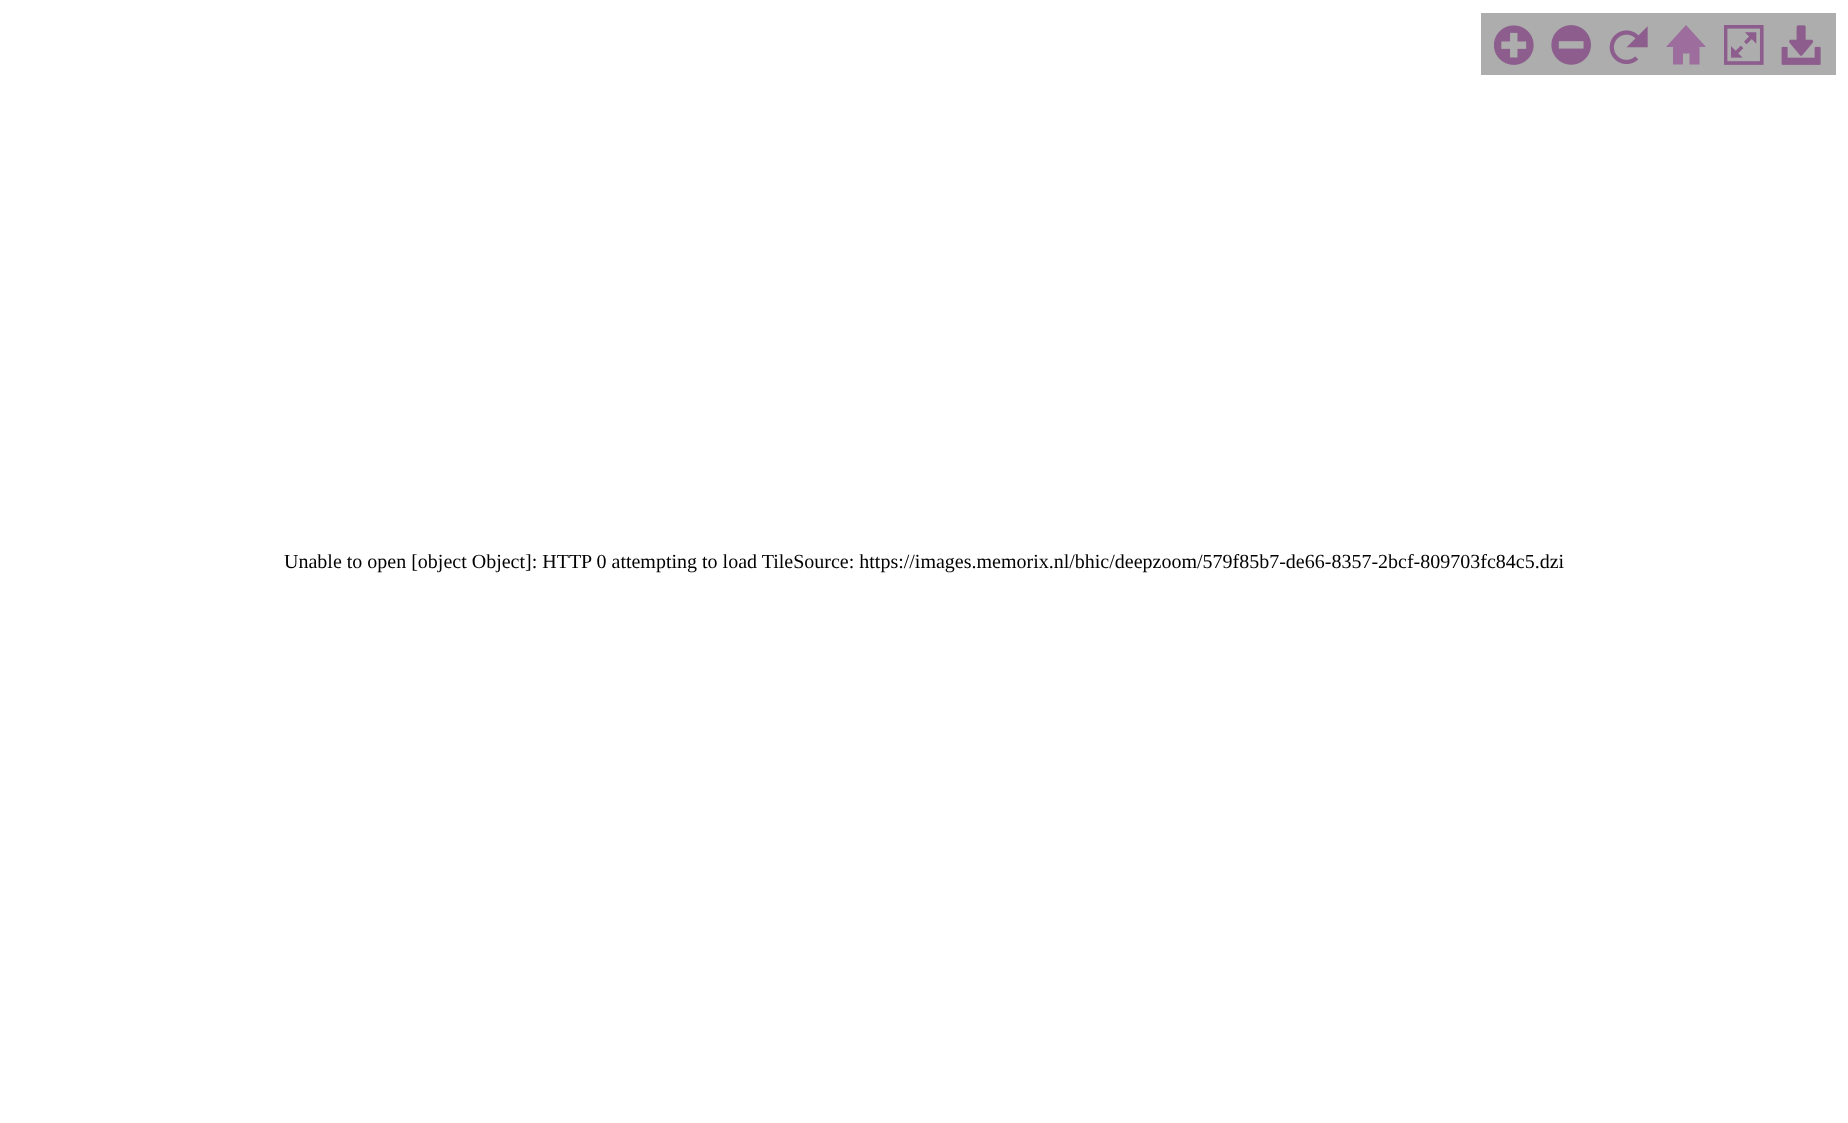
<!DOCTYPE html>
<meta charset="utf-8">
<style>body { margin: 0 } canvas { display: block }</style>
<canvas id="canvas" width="1848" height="1123"></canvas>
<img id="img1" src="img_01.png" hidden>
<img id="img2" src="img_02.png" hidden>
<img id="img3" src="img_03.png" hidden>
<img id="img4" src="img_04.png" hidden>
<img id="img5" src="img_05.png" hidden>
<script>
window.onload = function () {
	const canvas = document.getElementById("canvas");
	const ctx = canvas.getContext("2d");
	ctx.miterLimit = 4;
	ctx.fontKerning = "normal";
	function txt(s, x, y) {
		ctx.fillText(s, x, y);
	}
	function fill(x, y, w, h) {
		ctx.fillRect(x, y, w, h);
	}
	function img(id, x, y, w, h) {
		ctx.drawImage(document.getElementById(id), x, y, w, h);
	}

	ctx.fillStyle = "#FFFFFF";
	fill(0, 0, 1848, 1123);
	ctx.fillStyle = "#ADADAD";
	fill(1481, 13, 355, 62);
	img("img1", 1494, 25, 40, 40);
	img("img2", 1551, 25, 40, 40);
	img("img3", 1609, 26, 39, 39);
	ctx.fillStyle = "#9C6D9D";
	ctx.beginPath();
	ctx.moveTo(1706, 47);
	ctx.lineTo(1686, 25);
	ctx.lineTo(1666, 47);
	ctx.lineTo(1673, 47);
	ctx.lineTo(1673, 64.5);
	ctx.lineTo(1683, 64.5);
	ctx.lineTo(1683, 53.5);
	ctx.lineTo(1689.5, 53.5);
	ctx.lineTo(1689.5, 64.5);
	ctx.lineTo(1699.5, 64.5);
	ctx.lineTo(1699.5, 47);
	ctx.closePath();
	ctx.fill();
	img("img4", 1724, 25, 40, 40);
	img("img5", 1781, 25, 40, 40);
	ctx.font = "20px Liberation Serif";
	ctx.fillStyle = "#000000";
	txt("Unable to open [object Object]: HTTP 0 attempting to load TileSource: https://images.memorix.nl/bhic/deepzoom/579f85b7-de66-8357-2bcf-809703fc84c5.dzi", 284, 568);
};
</script>
